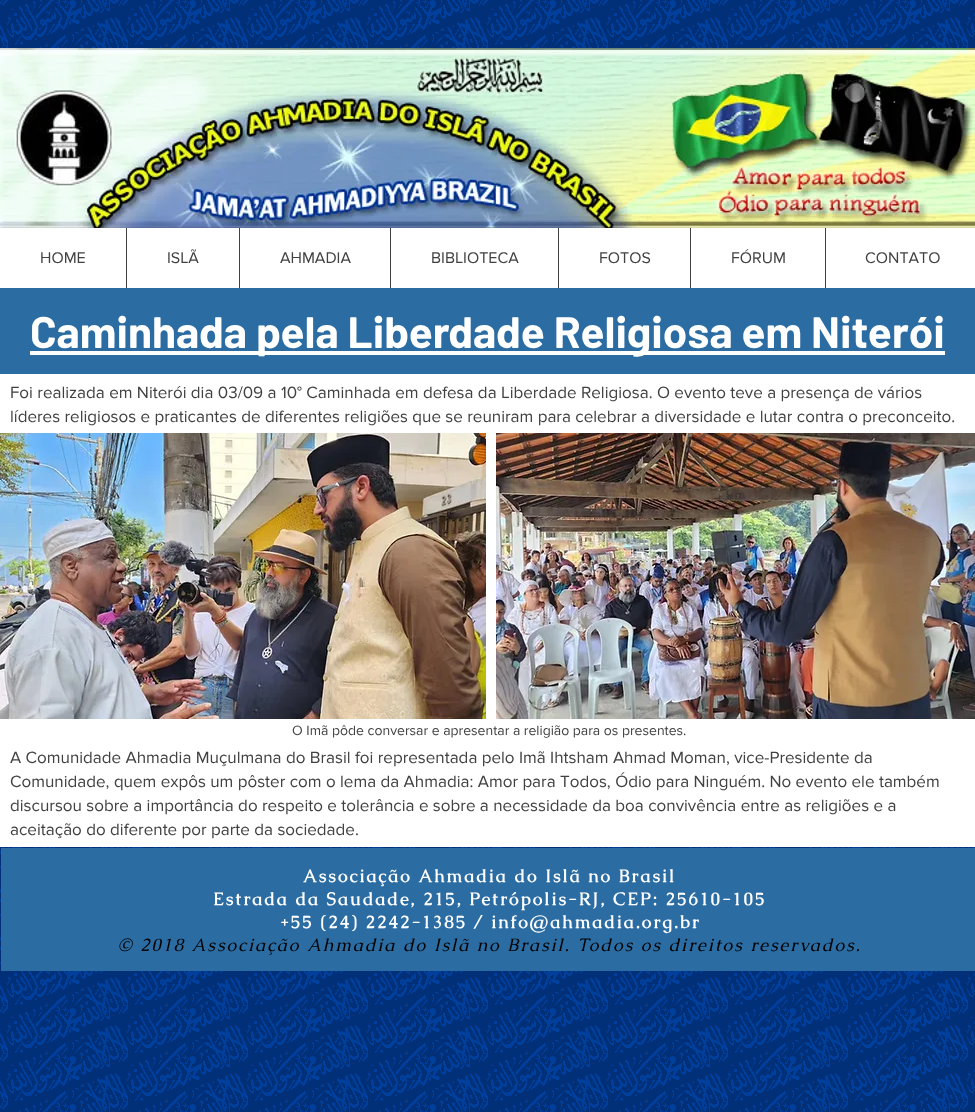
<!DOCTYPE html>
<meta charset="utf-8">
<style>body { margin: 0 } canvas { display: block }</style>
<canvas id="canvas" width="975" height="1112"></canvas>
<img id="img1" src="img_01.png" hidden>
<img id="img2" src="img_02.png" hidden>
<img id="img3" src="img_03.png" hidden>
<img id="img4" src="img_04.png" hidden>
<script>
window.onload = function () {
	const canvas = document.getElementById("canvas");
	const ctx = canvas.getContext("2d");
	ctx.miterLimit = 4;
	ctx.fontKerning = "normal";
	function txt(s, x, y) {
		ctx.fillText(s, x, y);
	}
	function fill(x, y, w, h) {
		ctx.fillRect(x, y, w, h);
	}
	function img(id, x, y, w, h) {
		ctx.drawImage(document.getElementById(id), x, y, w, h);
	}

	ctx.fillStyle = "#FFFFFF";
	fill(0, 0, 975, 1112);
	img("img1", 0, 0, 975, 1112);
	img("img2", 0, 48, 975, 180);
	ctx.fillStyle = "rgba(0, 0, 0, 0.6)";
	ctx.filter = "blur(2px)";
	ctx.beginPath();
	ctx.rect(0, 229, 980, 60);
	ctx.fill();
	ctx.filter = "none";
	ctx.fillStyle = "#FFFFFF";
	fill(0, 228, 975, 60);
	ctx.fillStyle = "#414141";
	fill(126, 228, 1, 60);
	fill(239, 228, 1, 60);
	fill(390, 228, 1, 60);
	fill(558, 228, 1, 60);
	fill(690, 228, 1, 60);
	fill(825, 228, 1, 60);
	ctx.fillStyle = "#2B6CA3";
	fill(0, 288, 975, 86);
	ctx.fillStyle = "#FFFFFF";
	fill(30, 351, 915, 4);
	fill(0, 374, 975, 473);
	img("img3", 0, 433, 486, 286);
	img("img4", 496, 433, 479, 286);
	ctx.fillStyle = "#2B6CA3";
	fill(1, 848, 974, 123);
	ctx.font = "16px 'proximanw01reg'";
	ctx.fillStyle = "#414141";
	txt("HOME", 40, 263);
	txt("ISLÃ", 167, 263);
	txt("AHMADIA", 280, 263);
	txt("BIBLIOTECA", 431, 263);
	txt("FOTOS", 599, 263);
	txt("FÓRUM", 731, 263);
	txt("CONTATO", 865, 263);
	ctx.font = "bold 44px Barlow";
	ctx.fillStyle = "#FFFFFF";
	txt("Caminhada pela Liberdade Religiosa em Niterói", 30, 348);
	ctx.font = "17px 'proximanw01reg'";
	ctx.fillStyle = "#414141";
	txt("Foi realizada em Niterói dia 03/09 a 10° Caminhada em defesa da Liberdade Religiosa. O evento teve a presença de vários", 10, 398);
	txt("líderes religiosos e praticantes de diferentes religiões que se reuniram para celebrar a diversidade e lutar contra o preconceito.", 10, 422);
	ctx.font = "14px 'proximanw01reg'";
	txt("O Imã pôde conversar e apresentar a religião para os presentes.", 292, 735);
	ctx.font = "17px 'proximanw01reg'";
	txt("A Comunidade Ahmadia Muçulmana do Brasil foi representada pelo Imã Ihtsham Ahmad Moman, vice-Presidente da", 10, 763);
	txt("Comunidade, quem expôs um pôster com o lema da Ahmadia: Amor para Todos, Ódio para Ninguém. No evento ele também", 10, 787);
	txt("discursou sobre a importância do respeito e tolerância e sobre a necessidade da boa convivência entre as religiões e a", 10, 811);
	txt("aceitação do diferente por parte da sociedade.", 10, 835);
	ctx.letterSpacing = "1.8px";
	ctx.font = "bold 18px Caudex";
	ctx.fillStyle = "#FFFFFF";
	txt("Associação Ahmadia do Islã no Brasil", 303, 882);
	txt("Estrada da Saudade, 215, Petrópolis-RJ, CEP: 25610-105", 213, 905);
	txt("+55 (24) 2242-1385 / info@ahmadia.org.br", 280, 928);
	ctx.font = "italic 18px Caudex";
	ctx.fillStyle = "#000000";
	txt("© 2018 Associação Ahmadia do Islã no Brasil. Todos os direitos reservados.", 118, 951);
};
</script>
